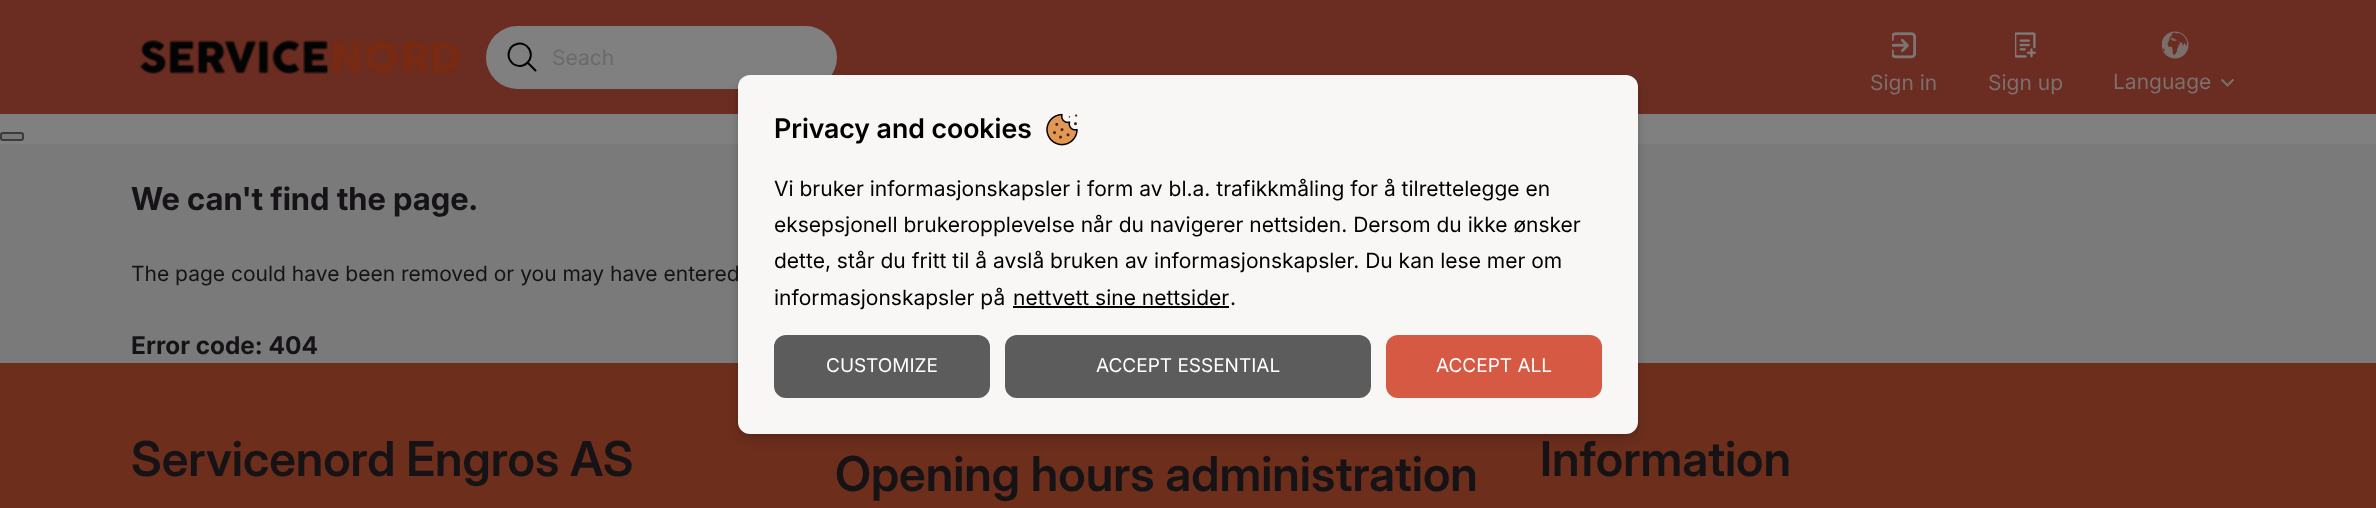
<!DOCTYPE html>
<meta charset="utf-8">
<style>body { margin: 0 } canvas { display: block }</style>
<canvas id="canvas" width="2376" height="508"></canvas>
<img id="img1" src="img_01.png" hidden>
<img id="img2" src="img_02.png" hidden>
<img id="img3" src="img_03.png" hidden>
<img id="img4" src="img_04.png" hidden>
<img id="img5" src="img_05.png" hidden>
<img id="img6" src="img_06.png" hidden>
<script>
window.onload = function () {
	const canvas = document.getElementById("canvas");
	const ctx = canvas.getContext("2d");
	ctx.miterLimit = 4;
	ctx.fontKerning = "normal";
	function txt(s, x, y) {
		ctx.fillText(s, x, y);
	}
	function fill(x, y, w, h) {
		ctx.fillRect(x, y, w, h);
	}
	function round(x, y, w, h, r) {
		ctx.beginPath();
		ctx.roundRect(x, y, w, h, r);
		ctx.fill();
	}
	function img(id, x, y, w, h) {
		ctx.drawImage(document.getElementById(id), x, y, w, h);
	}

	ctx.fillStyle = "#7A7A7B";
	fill(0, 0, 2376, 508);
	ctx.fillStyle = "#6B2D22";
	fill(0, 0, 2376, 114);
	img("img1", 139, 40, 322, 34);
	ctx.fillStyle = "#808080";
	round(486, 26, 351, 63, 31.5);
	ctx.beginPath();
	ctx.moveTo(535.5, 70.5);
	ctx.lineTo(527.5, 62.5);
	ctx.moveTo(527.5, 62.5);
	ctx.bezierCurveTo(536, 54.5, 527, 39.5, 515.5, 44.5);
	ctx.bezierCurveTo(512.5, 45.5, 510.5, 47.5, 509.5, 50.5);
	ctx.bezierCurveTo(508, 54, 508.5, 58, 510.5, 61);
	ctx.bezierCurveTo(514.5, 67, 523, 67.5, 527.5, 62.5);
	ctx.closePath();
	ctx.strokeStyle = "#000000";
	ctx.lineWidth = 2;
	ctx.lineCap = "round";
	ctx.lineJoin = "round";
	ctx.stroke();
	img("img2", 1892, 32, 24, 27);
	img("img3", 2015, 32, 21, 26);
	img("img4", 2162, 31, 27, 28);
	img("img5", 2220, 78, 15, 9);
	fill(0, 114, 2376, 30);
	ctx.fillStyle = "#787878";
	ctx.beginPath();
	ctx.roundRect(1, 133, 22, 7, 2);
	ctx.fill();
	ctx.strokeStyle = "#3B3B3B";
	ctx.lineJoin = "miter";
	ctx.stroke();
	ctx.fillStyle = "#6D2E1C";
	fill(0, 363, 2376, 145);
	ctx.fillStyle = "rgba(0, 0, 0, 0.13)";
	ctx.filter = "blur(5.5px)";
	ctx.beginPath();
	ctx.roundRect(738, 81, 900, 359, 12);
	ctx.fill();
	ctx.filter = "none";
	ctx.fillStyle = "rgba(0, 0, 0, 0.1)";
	ctx.filter = "blur(1.5px)";
	ctx.beginPath();
	ctx.roundRect(738, 77, 900, 358, 12);
	ctx.fill();
	ctx.filter = "none";
	ctx.fillStyle = "#F8F7F6";
	round(738, 75, 900, 359, 12);
	img("img6", 1046, 113, 32, 33);
	ctx.fillStyle = "#000000";
	fill(1013, 306, 216, 2);
	ctx.fillStyle = "#5C5C5C";
	ctx.beginPath();
	ctx.roundRect(775, 336, 214, 61, 11);
	ctx.fill();
	ctx.strokeStyle = "#5C5C5C";
	ctx.stroke();
	ctx.beginPath();
	ctx.roundRect(1006, 336, 364, 61, 11);
	ctx.fill();
	ctx.stroke();
	ctx.fillStyle = "#D65943";
	round(1386, 335, 216, 63, 12);
	ctx.font = "bold 31.5px Inter";
	ctx.fillStyle = "#161317";
	txt("We can't find the page.", 131, 210);
	ctx.font = "21px Inter";
	txt("The page could have been removed or you may have entered", 131, 281);
	ctx.font = "bold 24.5px 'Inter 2'";
	txt("Error code: 404", 131, 354);
	ctx.font = "21px Inter";
	ctx.fillStyle = "#6A6A6A";
	txt("Seach", 552, 65);
	ctx.fillStyle = "#7C6F6D";
	txt("Sign in", 1870, 90);
	txt("Sign up", 1988, 90);
	txt("Language", 2113, 89);
	ctx.font = "600 27px 'Inter 2'";
	ctx.fillStyle = "#000000";
	txt("Privacy and cookies", 774, 138);
	ctx.font = "21px Inter";
	txt("Vi bruker informasjonskapsler i form av bl.a. trafikkmåling for å tilrettelegge en", 774, 196);
	txt("eksepsjonell brukeropplevelse når du navigerer nettsiden. Dersom du ikke ønsker", 774, 232);
	txt("dette, står du fritt til å avslå bruken av informasjonskapsler. Du kan lese mer om", 774, 268);
	txt("informasjonskapsler på", 774, 305);
	txt("nettvett sine nettsider", 1013, 305);
	txt(".", 1230, 305);
	ctx.font = "19px Inter";
	ctx.fillStyle = "#FFFFFF";
	txt("CUSTOMIZE", 826, 372);
	txt("ACCEPT ESSENTIAL", 1096, 372);
	txt("ACCEPT ALL", 1436, 372);
	ctx.font = "600 48px Inter";
	ctx.fillStyle = "#161317";
	txt("Servicenord Engros AS", 131, 476);
	txt("Opening hours administration", 835, 491);
	txt("Information", 1540, 476);
};
</script>
